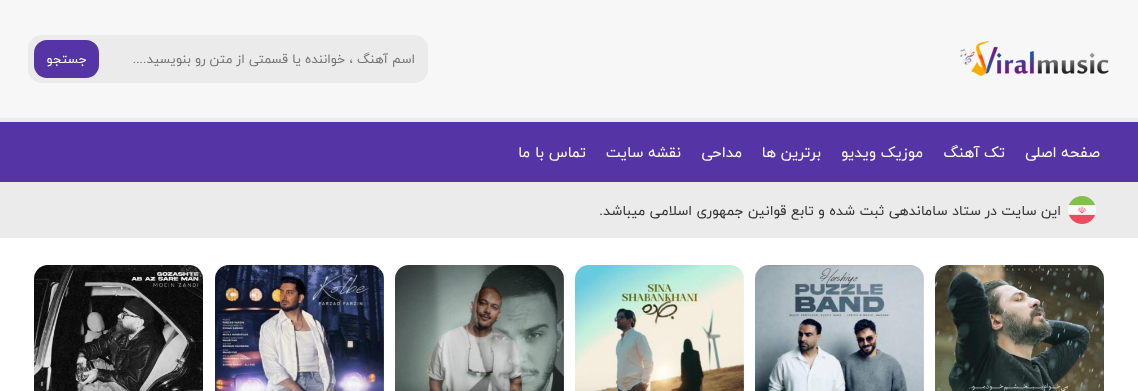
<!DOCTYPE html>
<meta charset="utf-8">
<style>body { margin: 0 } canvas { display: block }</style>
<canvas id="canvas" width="1138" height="391"></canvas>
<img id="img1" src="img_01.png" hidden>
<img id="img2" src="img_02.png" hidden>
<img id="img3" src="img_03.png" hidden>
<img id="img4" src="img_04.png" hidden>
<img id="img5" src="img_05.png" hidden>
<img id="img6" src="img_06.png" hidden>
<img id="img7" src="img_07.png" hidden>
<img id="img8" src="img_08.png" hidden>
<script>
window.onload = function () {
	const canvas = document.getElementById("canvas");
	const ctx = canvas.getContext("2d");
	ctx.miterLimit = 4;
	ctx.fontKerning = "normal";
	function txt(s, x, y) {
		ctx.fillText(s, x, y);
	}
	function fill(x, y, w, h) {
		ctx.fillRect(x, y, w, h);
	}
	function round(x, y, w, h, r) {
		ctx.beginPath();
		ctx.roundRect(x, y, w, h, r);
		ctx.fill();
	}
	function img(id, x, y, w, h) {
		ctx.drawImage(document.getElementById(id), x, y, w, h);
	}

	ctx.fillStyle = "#FFFFFF";
	fill(0, 0, 1138, 391);
	ctx.fillStyle = "#F7F7F7";
	fill(0, 0, 1138, 118);
	ctx.fillStyle = "#EBEBEB";
	fill(0, 118, 1138, 4);
	img("img1", 960, 41, 149, 35);
	round(28, 35, 400, 48, 14);
	ctx.fillStyle = "#5534A5";
	round(34, 40, 65, 38, 13);
	fill(0, 122, 1138, 60);
	ctx.fillStyle = "#EBEBEB";
	fill(0, 182, 1138, 56);
	img("img2", 1068, 196, 28, 28);
	img("img3", 935, 265, 169, 126);
	img("img4", 755, 265, 169, 126);
	img("img5", 575, 265, 169, 126);
	img("img6", 395, 265, 169, 126);
	img("img7", 215, 265, 169, 126);
	img("img8", 34, 265, 169, 126);
	ctx.direction = "rtl";
	ctx.font = "13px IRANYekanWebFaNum";
	ctx.fillStyle = "#757575";
	txt("اسم آهنگ ، خواننده یا قسمتی از متن رو بنویسید....", 415, 63);
	ctx.fillStyle = "#FFFFFF";
	txt("جستجو", 87, 63);
	ctx.font = "15px IRANYekanWebFaNum";
	txt("صفحه اصلی", 1100, 157);
	txt("تک آهنگ", 1005, 157);
	txt("موزیک ویدیو", 923, 157);
	txt("برترین ها", 821, 157);
	txt("مداحی", 742, 157);
	txt("نقشه سایت", 681, 157);
	txt("تماس با ما", 586, 157);
	ctx.font = "14px IRANYekanWebFaNum";
	ctx.fillStyle = "#333333";
	txt("این سایت در ستاد ساماندهی ثبت شده و تابع قوانین جمهوری اسلامی میباشد.", 1061, 215);
};
</script>
